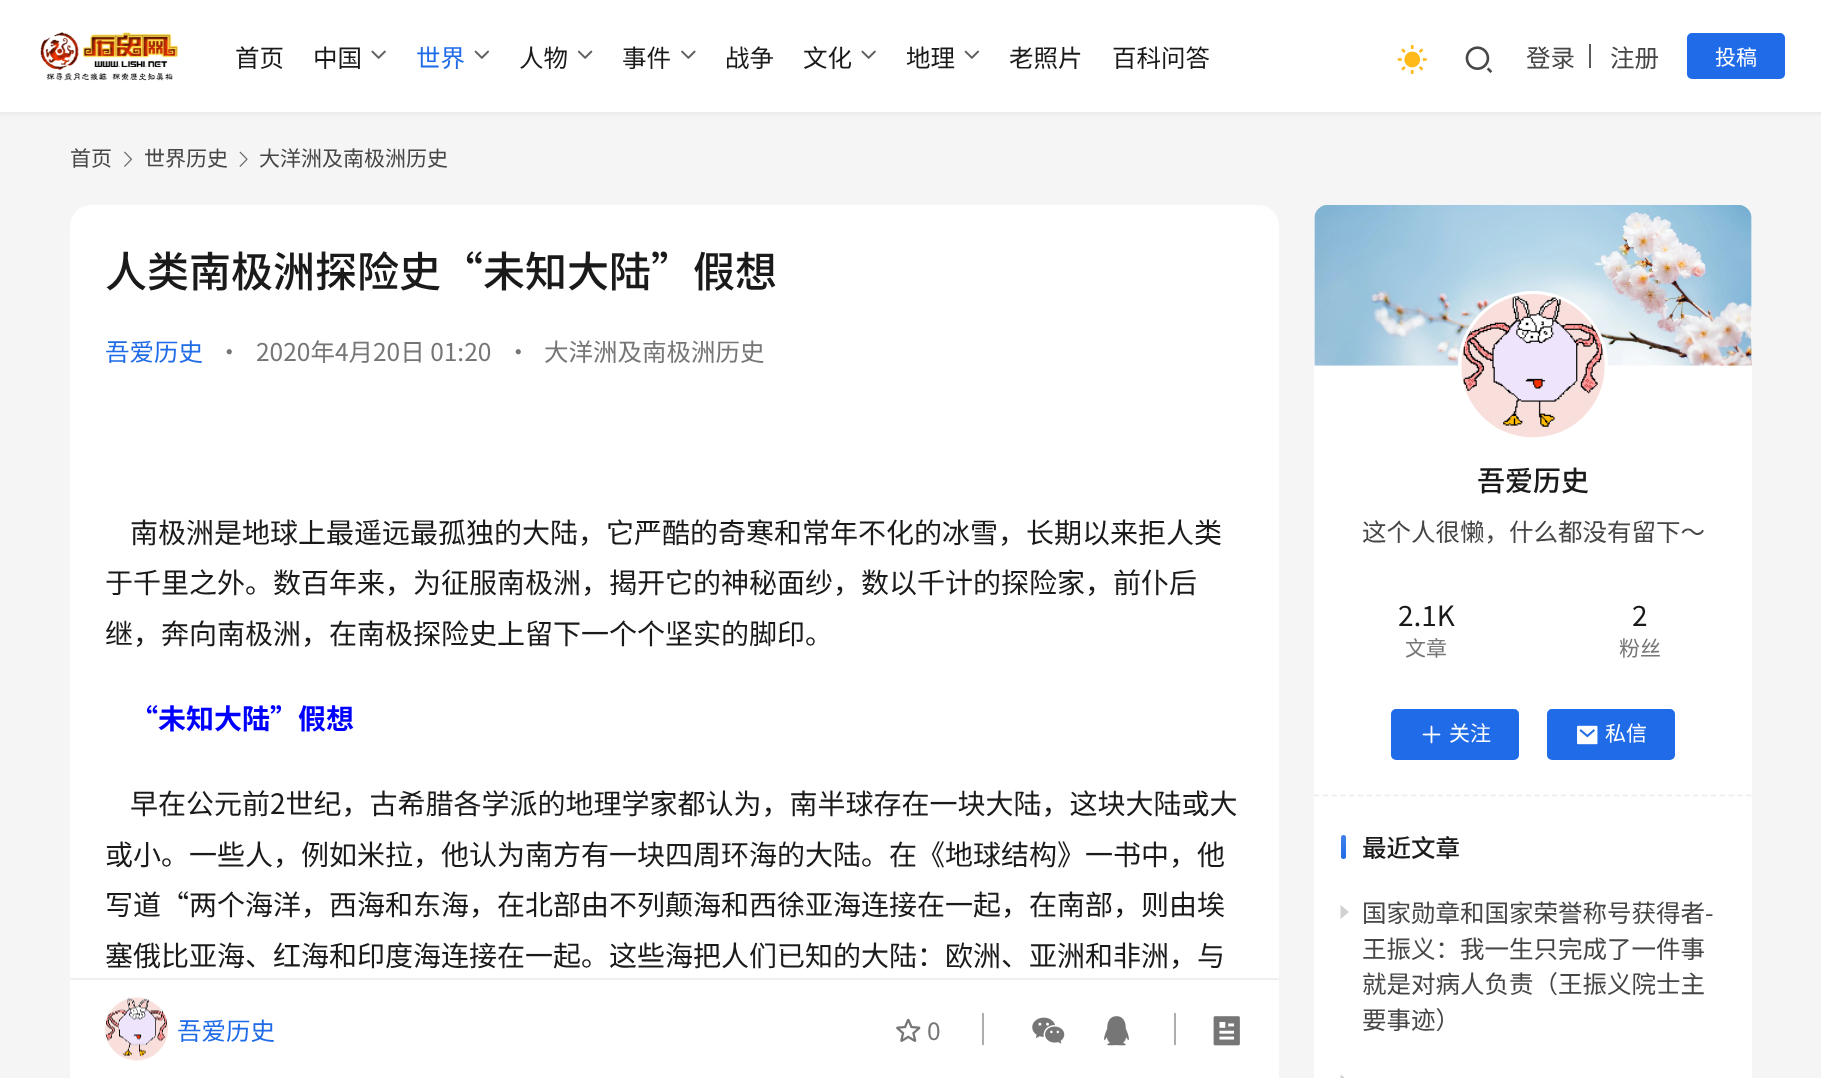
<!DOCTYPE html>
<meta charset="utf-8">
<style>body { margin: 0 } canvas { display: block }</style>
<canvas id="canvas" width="1821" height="1078"></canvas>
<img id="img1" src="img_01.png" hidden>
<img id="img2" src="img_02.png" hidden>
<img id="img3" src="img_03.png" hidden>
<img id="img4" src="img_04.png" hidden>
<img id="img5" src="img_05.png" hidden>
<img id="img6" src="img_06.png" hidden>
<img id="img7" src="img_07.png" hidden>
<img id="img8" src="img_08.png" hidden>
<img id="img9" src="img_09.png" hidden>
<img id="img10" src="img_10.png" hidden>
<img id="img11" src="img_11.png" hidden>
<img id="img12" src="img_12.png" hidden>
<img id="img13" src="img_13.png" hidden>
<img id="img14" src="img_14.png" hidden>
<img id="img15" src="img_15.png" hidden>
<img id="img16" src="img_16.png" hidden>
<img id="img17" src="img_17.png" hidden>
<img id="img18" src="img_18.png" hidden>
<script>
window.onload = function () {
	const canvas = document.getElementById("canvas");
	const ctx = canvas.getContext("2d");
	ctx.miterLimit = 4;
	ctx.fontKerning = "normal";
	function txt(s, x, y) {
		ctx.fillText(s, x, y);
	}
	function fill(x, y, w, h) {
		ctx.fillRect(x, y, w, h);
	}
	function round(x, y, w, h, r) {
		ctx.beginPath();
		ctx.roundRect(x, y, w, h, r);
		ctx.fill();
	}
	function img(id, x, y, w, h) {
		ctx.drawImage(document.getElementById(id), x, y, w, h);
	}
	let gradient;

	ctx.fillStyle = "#F5F5F5";
	fill(0, 0, 1821, 1078);
	ctx.fillStyle = "rgba(26, 26, 26, 0.06)";
	ctx.filter = "blur(2.5px)";
	ctx.beginPath();
	ctx.rect(-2, -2, 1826, 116);
	ctx.fill();
	ctx.filter = "none";
	ctx.fillStyle = "#FFFFFF";
	fill(0, 0, 1821, 112);
	img("img1", 40, 32, 139, 49);
	img("img2", 371, 50, 15, 9);
	img("img3", 474, 50, 15, 9);
	img("img4", 577, 50, 16, 9);
	img("img5", 681, 50, 15, 9);
	img("img2", 861, 50, 15, 9);
	img("img3", 964, 50, 15, 9);
	img("img6", 1397, 45, 30, 29);
	img("img7", 1465, 46, 28, 27);
	ctx.fillStyle = "#5A5A5A";
	fill(1589, 44, 2, 24);
	ctx.fillStyle = "#206BE7";
	ctx.beginPath();
	ctx.roundRect(1688, 34, 96, 44, 4);
	ctx.fill();
	ctx.strokeStyle = "#206BE7";
	ctx.lineWidth = 2;
	ctx.stroke();
	img("img8", 124, 151, 8, 16);
	img("img9", 239, 151, 9, 16);
	ctx.fillStyle = "#FFFFFF";
	round(70, 205, 1209, 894, 21);
	ctx.fillStyle = "#EFEFEF";
	fill(70, 978, 1209, 2);
	img("img10", 105, 997, 63, 64);
	img("img11", 896, 1018, 25, 24);
	ctx.fillStyle = "#ADADAD";
	fill(982, 1013, 2, 32);
	img("img12", 1032, 1017, 33, 27);
	img("img13", 1104, 1016, 25, 30);
	fill(1174, 1013, 2, 32);
	img("img14", 1213, 1016, 27, 30);
	ctx.fillStyle = "#FFFFFF";
	round(1314, 205, 438, 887, 14);
	img("img15", 1314, 205, 438, 161);
	ctx.beginPath();
	ctx.arc(1533, 366, 75, 0, Math.PI * 2);
	ctx.fill();
	img("img16", 1461, 294, 144, 144);
	ctx.fillStyle = "#206BE7";
	ctx.beginPath();
	ctx.roundRect(1392, 710, 126, 49, 4);
	ctx.fill();
	ctx.stroke();
	img("img17", 1422, 725, 19, 19);
	ctx.beginPath();
	ctx.roundRect(1548, 710, 126, 49, 4);
	ctx.fill();
	ctx.stroke();
	img("img18", 1577, 725, 21, 20);
	ctx.beginPath();
	ctx.moveTo(1314, 795.5);
	ctx.lineTo(1752, 795.5);
	ctx.strokeStyle = "#EFEFEF";
	ctx.lineWidth = 1.8;
	ctx.setLineDash([5.25, 3.57]);
	ctx.stroke();
	round(1341, 835, 5, 24, 2.5);
	gradient = ctx.createLinearGradient(1343, 835, 1343, 859);
	gradient.addColorStop(0, "rgba(255, 255, 255, 0.15)");
	gradient.addColorStop(1, "rgba(255, 255, 255, 0)");
	ctx.fillStyle = gradient;
	round(1341, 835, 5, 24, 2.5);
	ctx.fillStyle = "#D1D1D1";
	ctx.beginPath();
	ctx.moveTo(1340.5, 919);
	ctx.lineTo(1340.5, 905);
	ctx.lineTo(1349, 912);
	ctx.closePath();
	ctx.fill();
	ctx.beginPath();
	ctx.moveTo(1340.5, 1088.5);
	ctx.lineTo(1340.5, 1074.5);
	ctx.lineTo(1349, 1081.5);
	ctx.closePath();
	ctx.fill();
	ctx.font = "24.5px Noto Sans CJK SC";
	ctx.fillStyle = "#1A1A1A";
	txt("首页", 235, 67);
	txt("中国", 313, 67);
	ctx.fillStyle = "#206BE7";
	txt("世界", 416, 67);
	ctx.fillStyle = "#1A1A1A";
	txt("人物", 519, 67);
	txt("事件", 622, 67);
	txt("战争", 725, 67);
	txt("文化", 803, 67);
	txt("地理", 906, 67);
	txt("老照片", 1009, 67);
	txt("百科问答", 1112, 67);
	ctx.fillStyle = "#464646";
	txt("登录", 1526, 67);
	txt("注册", 1610, 67);
	ctx.font = "21px Noto Sans CJK SC";
	ctx.fillStyle = "#FFFFFF";
	txt("投稿", 1715, 65);
	ctx.fillStyle = "#464646";
	txt("首页", 70, 166);
	txt("世界历史", 144, 166);
	txt("大洋洲及南极洲历史", 259, 166);
	ctx.font = "500 42px Noto Sans CJK SC";
	ctx.fillStyle = "#1A1A1A";
	txt("人类南极洲探险史“未知大陆”假想", 105, 287);
	ctx.font = "24.5px Noto Sans CJK SC";
	ctx.fillStyle = "#206BE7";
	txt("吾爱历史", 105, 361);
	ctx.fillStyle = "#767676";
	txt("•", 217, 361);
	txt("2020年4月20日 01:20", 256, 361);
	txt("•", 506, 361);
	txt("大洋洲及南极洲历史", 544, 361);
	ctx.font = "28px Noto Sans CJK SC";
	ctx.fillStyle = "#1A1A1A";
	txt("南极洲是地球上最遥远最孤独的大陆，它严酷的奇寒和常年不化的冰雪，长期以来拒人类", 130, 543);
	txt("于千里之外。数百年来，为征服南极洲，揭开它的神秘面纱，数以千计的探险家，前仆后", 105, 593);
	txt("继，奔向南极洲，在南极探险史上留下一个个坚实的脚印。", 105, 644);
	ctx.font = "bold 28px Noto Sans CJK SC";
	ctx.fillStyle = "#0000FF";
	txt("“未知大陆”假想", 130, 729);
	ctx.font = "28px Noto Sans CJK SC";
	ctx.fillStyle = "#1A1A1A";
	txt("早在公元前2世纪，古希腊各学派的地理学家都认为，南半球存在一块大陆，这块大陆或大", 130, 814);
	txt("或小。一些人，例如米拉，他认为南方有一块四周环海的大陆。在《地球结构》一书中，他", 105, 865);
	txt("写道“两个海洋，西海和东海，在北部由不列颠海和西徐亚海连接在一起，在南部，则由埃", 105, 915);
	txt("塞俄比亚海、红海和印度海连接在一起。这些海把人们已知的大陆：欧洲、亚洲和非洲，与", 105, 966);
	ctx.font = "24.5px Noto Sans CJK SC";
	ctx.fillStyle = "#206BE7";
	txt("吾爱历史", 177, 1040);
	ctx.fillStyle = "#767676";
	txt("0", 927, 1040);
	ctx.font = "500 28px Noto Sans CJK SC";
	ctx.fillStyle = "#1A1A1A";
	txt("吾爱历史", 1477, 491);
	ctx.font = "24.5px Noto Sans CJK SC";
	ctx.fillStyle = "#464646";
	txt("这个人很懒，什么都没有留下～", 1362, 541);
	ctx.font = "28px Noto Sans CJK SC";
	ctx.fillStyle = "#1A1A1A";
	txt("2.1K", 1398, 626);
	ctx.font = "21px Noto Sans CJK SC";
	ctx.fillStyle = "#767676";
	txt("文章", 1405, 656);
	ctx.font = "28px Noto Sans CJK SC";
	ctx.fillStyle = "#1A1A1A";
	txt("2", 1632, 626);
	ctx.font = "21px Noto Sans CJK SC";
	ctx.fillStyle = "#767676";
	txt("粉丝", 1619, 656);
	ctx.fillStyle = "#FFFFFF";
	txt("关注", 1449, 741);
	txt("私信", 1605, 741);
	ctx.font = "500 24.5px Noto Sans CJK SC";
	ctx.fillStyle = "#1A1A1A";
	txt("最近文章", 1362, 857);
	ctx.font = "24.5px Noto Sans CJK SC";
	ctx.fillStyle = "#464646";
	txt("国家勋章和国家荣誉称号获得者-", 1362, 922);
	txt("王振义：我一生只完成了一件事", 1362, 958);
	txt("就是对病人负责（王振义院士主", 1362, 993);
	txt("要事迹）", 1362, 1029);
};
</script>
